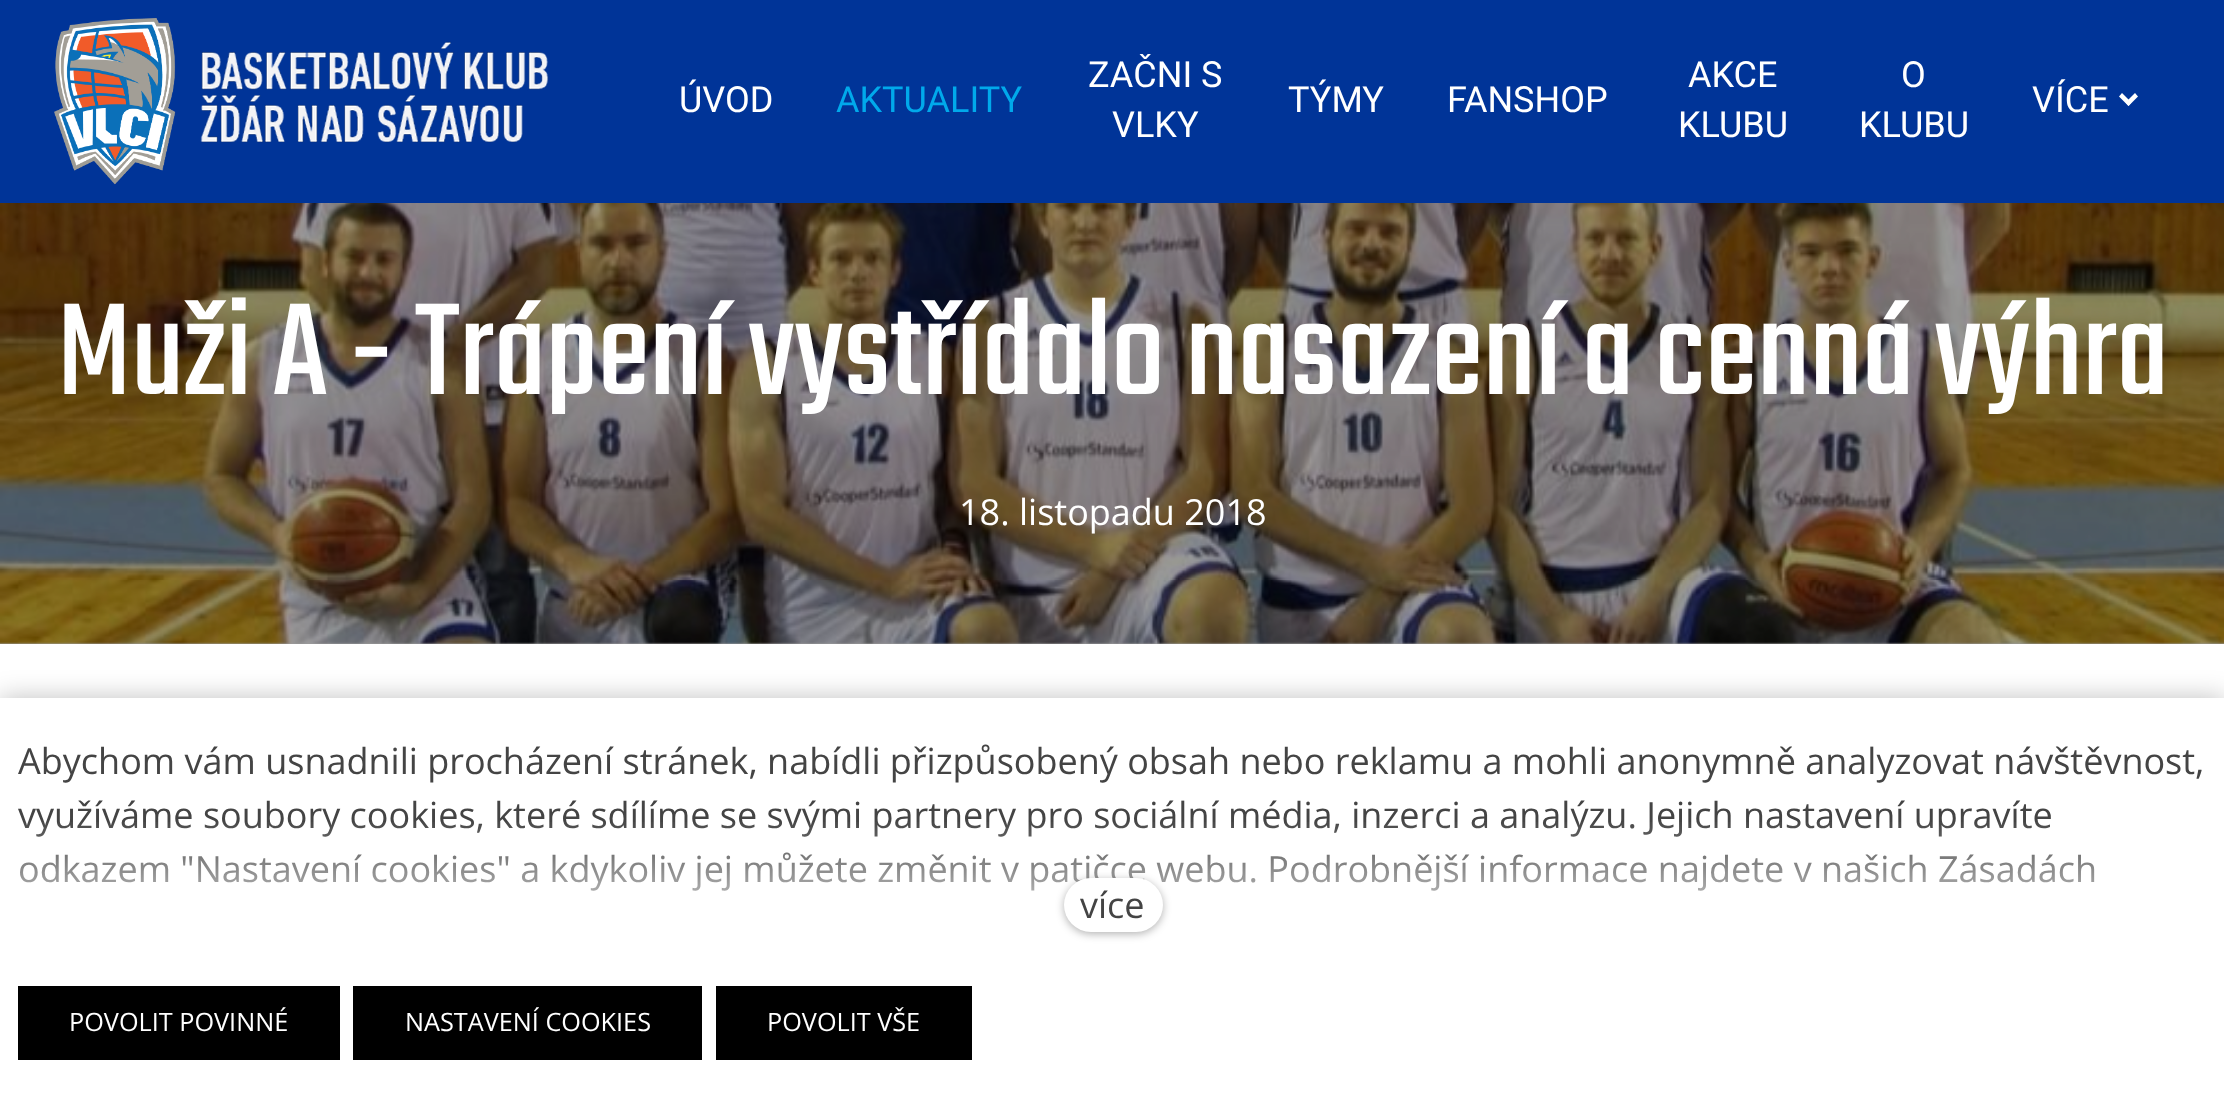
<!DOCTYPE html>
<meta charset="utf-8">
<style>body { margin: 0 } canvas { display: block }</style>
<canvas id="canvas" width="2224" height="1094"></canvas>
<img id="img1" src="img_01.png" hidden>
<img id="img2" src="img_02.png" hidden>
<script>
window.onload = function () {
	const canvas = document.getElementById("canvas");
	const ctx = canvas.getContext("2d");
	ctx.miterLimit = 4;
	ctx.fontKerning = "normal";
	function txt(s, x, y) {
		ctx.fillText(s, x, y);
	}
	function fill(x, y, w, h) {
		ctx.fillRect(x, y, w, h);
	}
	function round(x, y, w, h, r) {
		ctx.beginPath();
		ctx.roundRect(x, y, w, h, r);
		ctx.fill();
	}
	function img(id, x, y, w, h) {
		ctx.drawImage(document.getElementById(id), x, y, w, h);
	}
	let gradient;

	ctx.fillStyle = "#FFFFFF";
	fill(0, 0, 2224, 1094);
	ctx.fillStyle = "#999999";
	fill(0, 642, 2224, 2);
	ctx.fillStyle = "#003498";
	fill(0, 0, 2224, 203);
	img("img1", 54, 18, 495, 167);
	ctx.fillStyle = "#FFFFFF";
	ctx.beginPath();
	ctx.moveTo(2135, 93);
	ctx.lineTo(2138, 96.5);
	ctx.lineTo(2128.5, 106);
	ctx.lineTo(2125.5, 102.5);
	ctx.closePath();
	ctx.fill();
	ctx.beginPath();
	ctx.moveTo(2122, 93);
	ctx.lineTo(2131.5, 102.5);
	ctx.lineTo(2128.5, 106);
	ctx.lineTo(2119, 96.5);
	ctx.closePath();
	ctx.fill();
	img("img2", 0, 203, 2224, 441);
	ctx.fillStyle = "rgba(0, 0, 0, 0.25)";
	ctx.filter = "blur(13.5px)";
	ctx.beginPath();
	ctx.rect(0, 698, 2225, 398);
	ctx.fill();
	ctx.filter = "none";
	ctx.fillStyle = "#FFFFFF";
	fill(0, 698, 2224, 396);
	ctx.fillStyle = "#000000";
	fill(18, 986, 322, 74);
	fill(353, 986, 349, 74);
	fill(716, 986, 256, 74);
	ctx.font = "36px Roboto";
	ctx.fillStyle = "#FFFFFF";
	txt("ÚVOD", 679, 112);
	ctx.fillStyle = "#00A9EB";
	txt("AKTUALITY", 836, 112);
	ctx.fillStyle = "#FFFFFF";
	txt("ZAČNI S", 1088, 87);
	txt("VLKY", 1112, 137);
	txt("TÝMY", 1288, 112);
	txt("FANSHOP", 1447, 112);
	txt("AKCE", 1688, 87);
	txt("KLUBU", 1678, 137);
	txt("O", 1901, 87);
	txt("KLUBU", 1859, 137);
	txt("VÍCE", 2032, 112);
	ctx.font = "144px Teko";
	txt("Muži A - Trápení vystřídalo nasazení a cenná výhra", 57, 394);
	ctx.font = "36px Open Sans";
	txt("18. listopadu 2018", 959, 525);
	ctx.fillStyle = "#444444";
	txt("Abychom vám usnadnili procházení stránek, nabídli přizpůsobený obsah nebo reklamu a mohli anonymně analyzovat návštěvnost,", 18, 774);
	txt("využíváme soubory cookies, které sdílíme se svými partnery pro sociální média, inzerci a analýzu. Jejich nastavení upravíte", 18, 828);
	txt("odkazem \"Nastavení cookies\" a kdykoliv jej můžete změnit v patičce webu. Podrobnější informace najdete v našich Zásadách", 18, 882);
	gradient = ctx.createLinearGradient(1113, 950, 1113, 819);
	gradient.addColorStop(0, "#FFFFFF");
	gradient.addColorStop(1, "rgba(255, 255, 255, 0)");
	ctx.fillStyle = gradient;
	fill(20, 822, 2075, 69);
	ctx.fillStyle = "rgba(0, 0, 0, 0.3)";
	ctx.filter = "blur(4.5px)";
	ctx.beginPath();
	ctx.roundRect(1064, 880, 99, 54, 27);
	ctx.fill();
	ctx.filter = "none";
	ctx.fillStyle = "#FFFFFF";
	round(1064, 878, 99, 54, 27);
	ctx.fillStyle = "#444444";
	txt("více", 1080, 918);
	ctx.font = "25.25px Open Sans";
	ctx.fillStyle = "#FFFFFF";
	txt("POVOLIT POVINNÉ", 69, 1031);
	txt("NASTAVENÍ COOKIES", 405, 1031);
	txt("POVOLIT VŠE", 767, 1031);
};
</script>
